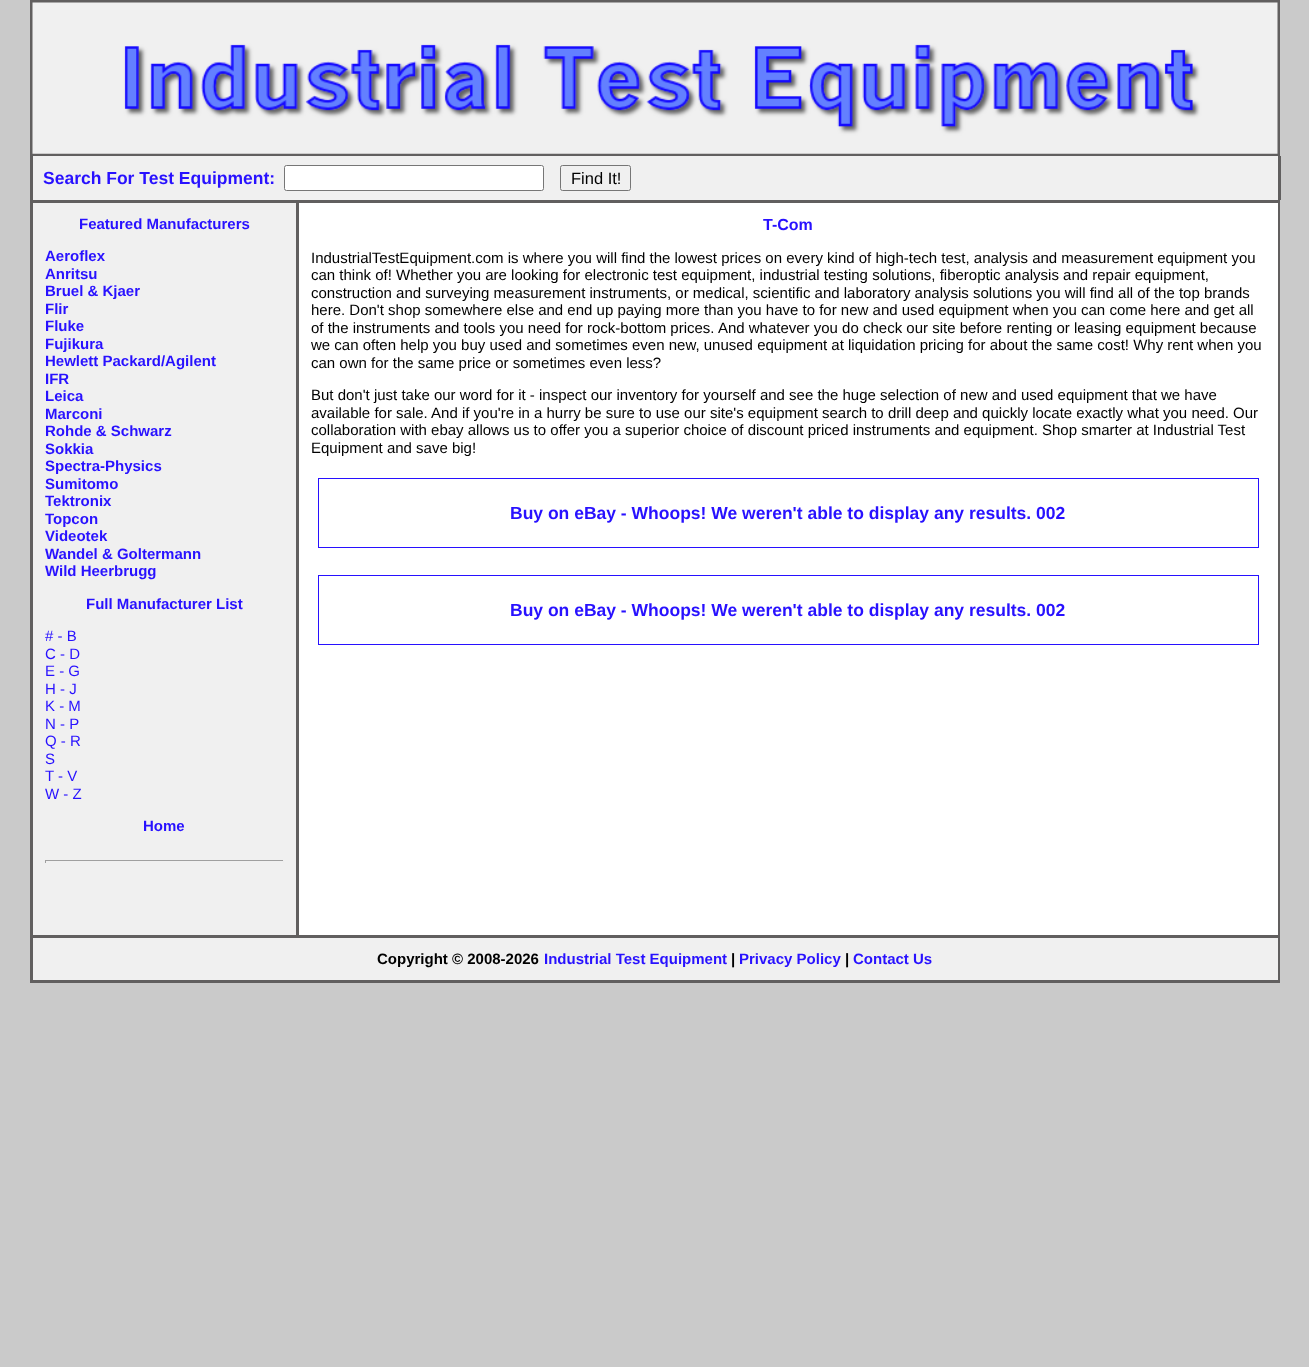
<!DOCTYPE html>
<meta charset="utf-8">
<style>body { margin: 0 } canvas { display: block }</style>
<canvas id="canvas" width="1309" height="1367"></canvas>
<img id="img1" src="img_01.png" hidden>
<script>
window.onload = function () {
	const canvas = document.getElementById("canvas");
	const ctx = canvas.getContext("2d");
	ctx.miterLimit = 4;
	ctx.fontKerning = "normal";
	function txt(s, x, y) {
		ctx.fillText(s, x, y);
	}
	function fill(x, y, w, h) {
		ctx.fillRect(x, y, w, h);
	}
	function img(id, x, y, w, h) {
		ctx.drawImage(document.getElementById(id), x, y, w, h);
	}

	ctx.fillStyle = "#CACACA";
	fill(0, 0, 1309, 1367);
	ctx.strokeStyle = "#615F5F";
	ctx.lineWidth = 3;
	ctx.strokeRect(31.5, 1.5, 1247, 153);
	img("img1", 32, 2, 1246, 152);
	ctx.fillStyle = "#F0F0F0";
	fill(33, 156, 1245, 44);
	ctx.fillStyle = "#615F5F";
	fill(1278, 156, 3, 44);
	fill(30, 156, 3, 44);
	ctx.fillStyle = "#FFFFFF";
	ctx.beginPath();
	ctx.roundRect(284.5, 165.5, 259, 25, 2);
	ctx.fill();
	ctx.strokeStyle = "#767676";
	ctx.lineWidth = 1;
	ctx.stroke();
	ctx.beginPath();
	ctx.roundRect(560.5, 165.5, 70, 25, 2);
	ctx.stroke();
	ctx.strokeStyle = "#615F5F";
	ctx.lineWidth = 3;
	ctx.strokeRect(31.5, 201.5, 1247, 780);
	ctx.fillStyle = "#F0F0F0";
	fill(33, 203, 263, 732);
	ctx.fillStyle = "#615F5F";
	fill(296, 203, 3, 732);
	ctx.fillStyle = "#9F9F9F";
	fill(45, 860, 239, 1);
	ctx.fillStyle = "#EEEEEE";
	fill(283, 860, 1, 3);
	ctx.fillStyle = "#9F9F9F";
	fill(45, 860, 1, 3);
	ctx.fillStyle = "#FFFFFF";
	fill(299, 203, 979, 732);
	ctx.strokeStyle = "#2811FF";
	ctx.lineWidth = 1;
	ctx.strokeRect(318.5, 478.5, 940, 69);
	ctx.strokeRect(318.5, 575.5, 940, 69);
	ctx.fillStyle = "#F0F0F0";
	fill(33, 938, 1245, 42);
	ctx.fillStyle = "#615F5F";
	fill(33, 935, 1245, 3);
	ctx.font = "bold 17.5px Liberation Sans";
	ctx.fillStyle = "#2811FF";
	txt("Search For Test Equipment:", 43, 184);
	ctx.font = "16.5px Liberation Sans";
	ctx.fillStyle = "#000000";
	txt("Find It!", 571, 184);
	ctx.font = "bold 15px Liberation Sans";
	ctx.fillStyle = "#2811FF";
	txt("Featured Manufacturers", 79, 229);
	txt("Aeroflex", 45, 261);
	txt("Anritsu", 45, 279);
	txt("Bruel & Kjaer", 45, 296);
	txt("Flir", 45, 314);
	txt("Fluke", 45, 331);
	txt("Fujikura", 45, 349);
	txt("Hewlett Packard/Agilent", 45, 366);
	txt("IFR", 45, 384);
	txt("Leica", 45, 401);
	txt("Marconi", 45, 419);
	txt("Rohde & Schwarz", 45, 436);
	txt("Sokkia", 45, 454);
	txt("Spectra-Physics", 45, 471);
	txt("Sumitomo", 45, 489);
	txt("Tektronix", 45, 506);
	txt("Topcon", 45, 524);
	txt("Videotek", 45, 541);
	txt("Wandel & Goltermann", 45, 559);
	txt("Wild Heerbrugg", 45, 576);
	txt("Full Manufacturer List", 86, 609);
	ctx.font = "15px Liberation Sans";
	txt("# - B", 45, 641);
	txt("C - D", 45, 659);
	txt("E - G", 45, 676);
	txt("H - J", 45, 694);
	txt("K - M", 45, 711);
	txt("N - P", 45, 729);
	txt("Q - R", 45, 746);
	txt("S", 45, 764);
	txt("T - V", 45, 781);
	txt("W - Z", 45, 799);
	ctx.font = "bold 15px Liberation Sans";
	txt("Home", 143, 831);
	ctx.font = "bold 16px Liberation Sans";
	txt("T-Com", 763, 230);
	ctx.font = "15px Liberation Sans";
	ctx.fillStyle = "#000000";
	txt("IndustrialTestEquipment.com is where you will find the lowest prices on every kind of high-tech test, analysis and measurement equipment you", 311, 263);
	txt("can think of! Whether you are looking for electronic test equipment, industrial testing solutions, fiberoptic analysis and repair equipment,", 311, 280);
	txt("construction and surveying measurement instruments, or medical, scientific and laboratory analysis solutions you will find all of the top brands", 311, 298);
	txt("here. Don't shop somewhere else and end up paying more than you have to for new and used equipment when you can come here and get all", 311, 315);
	txt("of the instruments and tools you need for rock-bottom prices. And whatever you do check our site before renting or leasing equipment because", 311, 333);
	txt("we can often help you buy used and sometimes even new, unused equipment at liquidation pricing for about the same cost! Why rent when you", 311, 350);
	txt("can own for the same price or sometimes even less?", 311, 368);
	txt("But don't just take our word for it - inspect our inventory for yourself and see the huge selection of new and used equipment that we have", 311, 400);
	txt("available for sale. And if you're in a hurry be sure to use our site's equipment search to drill deep and quickly locate exactly what you need. Our", 311, 418);
	txt("collaboration with ebay allows us to offer you a superior choice of discount priced instruments and equipment. Shop smarter at Industrial Test", 311, 435);
	txt("Equipment and save big!", 311, 453);
	ctx.font = "bold 17.5px Liberation Sans";
	ctx.fillStyle = "#2811FF";
	txt("Buy on eBay - Whoops! We weren't able to display any results. 002", 510, 519);
	txt("Buy on eBay - Whoops! We weren't able to display any results. 002", 510, 616);
	ctx.font = "bold 15px Liberation Sans";
	ctx.fillStyle = "#000000";
	txt("Copyright © 2008-2026", 377, 964);
	ctx.fillStyle = "#2811FF";
	txt("Industrial Test Equipment", 544, 964);
	ctx.fillStyle = "#000000";
	txt("|", 731, 964);
	ctx.fillStyle = "#2811FF";
	txt("Privacy Policy", 739, 964);
	ctx.fillStyle = "#000000";
	txt("|", 845, 964);
	ctx.fillStyle = "#2811FF";
	txt("Contact Us", 853, 964);
};
</script>
